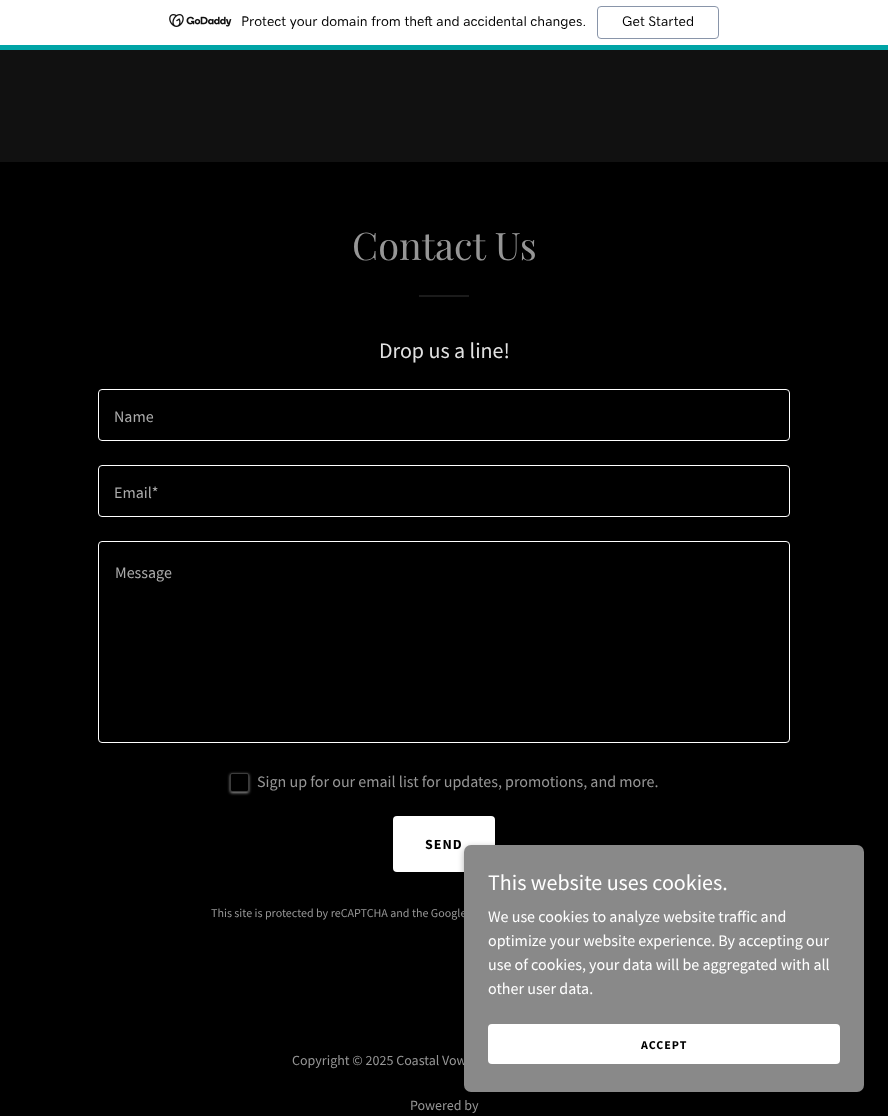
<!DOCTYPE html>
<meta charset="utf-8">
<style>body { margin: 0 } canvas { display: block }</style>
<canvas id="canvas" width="888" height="1116"></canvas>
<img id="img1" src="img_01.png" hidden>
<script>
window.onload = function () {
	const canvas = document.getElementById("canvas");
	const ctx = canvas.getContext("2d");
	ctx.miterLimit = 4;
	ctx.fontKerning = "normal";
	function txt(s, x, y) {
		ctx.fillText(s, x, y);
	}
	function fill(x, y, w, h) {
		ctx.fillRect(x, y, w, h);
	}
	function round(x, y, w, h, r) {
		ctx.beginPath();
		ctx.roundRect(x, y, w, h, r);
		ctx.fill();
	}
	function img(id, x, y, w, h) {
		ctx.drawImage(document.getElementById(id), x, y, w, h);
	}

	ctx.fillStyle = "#000000";
	fill(0, 0, 888, 1116);
	ctx.fillStyle = "#FFFFFF";
	fill(0, 0, 888, 45);
	ctx.fillStyle = "#00A4A6";
	fill(0, 45, 888, 5);
	img("img1", 169, 14, 63, 13);
	ctx.beginPath();
	ctx.roundRect(597.5, 6.5, 121, 32, 3.5);
	ctx.strokeStyle = "#8995A9";
	ctx.stroke();
	ctx.fillStyle = "#111111";
	fill(0, 50, 888, 112);
	ctx.fillStyle = "#1B1B1B";
	fill(419, 295, 50, 2);
	ctx.beginPath();
	ctx.roundRect(98.5, 389.5, 691, 51, 3.5);
	ctx.strokeStyle = "#FFFFFF";
	ctx.stroke();
	ctx.beginPath();
	ctx.roundRect(98.5, 465.5, 691, 51, 3.5);
	ctx.stroke();
	ctx.beginPath();
	ctx.roundRect(98.5, 541.5, 691, 201, 3.5);
	ctx.stroke();
	ctx.save();
	ctx.beginPath();
	ctx.moveTo(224, 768);
	ctx.lineTo(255, 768);
	ctx.lineTo(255, 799);
	ctx.lineTo(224, 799);
	ctx.closePath();
	ctx.moveTo(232, 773);
	ctx.lineTo(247, 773);
	ctx.bezierCurveTo(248, 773, 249, 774, 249, 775);
	ctx.lineTo(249, 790);
	ctx.bezierCurveTo(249, 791, 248, 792, 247, 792);
	ctx.lineTo(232, 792);
	ctx.bezierCurveTo(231, 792, 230, 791, 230, 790);
	ctx.lineTo(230, 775);
	ctx.bezierCurveTo(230, 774, 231, 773, 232, 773);
	ctx.closePath();
	ctx.clip("evenodd");
	ctx.fillStyle = "#969696";
	ctx.filter = "blur(1.5px)";
	ctx.beginPath();
	ctx.roundRect(230, 774, 19, 19, 2);
	ctx.fill();
	ctx.filter = "none";
	ctx.restore();
	ctx.beginPath();
	ctx.roundRect(230.5, 773.5, 18, 18, 1.5);
	ctx.strokeStyle = "rgba(119, 119, 119, 0.5)";
	ctx.stroke();
	ctx.fillStyle = "#FFFFFF";
	round(393, 816, 102, 56, 4);
	ctx.fillStyle = "rgba(0, 0, 0, 0.3)";
	ctx.filter = "blur(3px)";
	ctx.beginPath();
	ctx.roundRect(464, 847, 400, 247, 7);
	ctx.fill();
	ctx.filter = "none";
	ctx.font = "500 14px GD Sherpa";
	ctx.fillStyle = "#000000";
	txt("Protect your domain from theft and accidental changes.", 241, 26);
	txt("Get Started", 622, 26);
	ctx.font = "38px Playfair Display";
	ctx.fillStyle = "#969696";
	txt("Contact Us", 352, 260);
	ctx.font = "22px Source Sans Pro";
	ctx.fillStyle = "#E2E2E2";
	txt("Drop us a line!", 379, 358);
	ctx.font = "16px Source Sans Pro";
	ctx.fillStyle = "#ABABAB";
	txt("Name", 114, 422);
	txt("Email*", 114, 498);
	txt("Message", 115, 578);
	ctx.fillStyle = "#969696";
	txt("Sign up for our email list for updates, promotions, and more.", 257, 787);
	ctx.letterSpacing = "1px";
	ctx.font = "bold 14px Source Sans Pro";
	ctx.fillStyle = "#000000";
	txt("SEND", 425, 849);
	ctx.letterSpacing = "0px";
	ctx.font = "12px Source Sans Pro";
	ctx.fillStyle = "#969696";
	txt("This site is protected by reCAPTCHA and the Google", 211, 917);
	ctx.font = "14px Source Sans Pro";
	txt("Copyright © 2025 Coastal Vow", 292, 1065);
	ctx.fillStyle = "#898989";
	round(464, 845, 400, 247, 7);
	ctx.fillStyle = "#FFFFFF";
	round(488, 1024, 352, 40, 4);
	ctx.letterSpacing = "1px";
	ctx.font = "bold 12px Source Sans Pro";
	ctx.fillStyle = "#000000";
	txt("ACCEPT", 641, 1049);
	ctx.letterSpacing = "0px";
	ctx.font = "16px Source Sans Pro";
	ctx.fillStyle = "#FFFFFF";
	txt("other user data.", 488, 994);
	txt("use of cookies, your data will be aggregated with all", 488, 970);
	txt("optimize your website experience. By accepting our", 488, 946);
	txt("We use cookies to analyze website traffic and", 488, 922);
	ctx.font = "22px Source Sans Pro";
	txt("This website uses cookies.", 488, 890);
	ctx.font = "14px Source Sans Pro";
	ctx.fillStyle = "#969696";
	txt("Powered by", 410, 1110);
};
</script>
